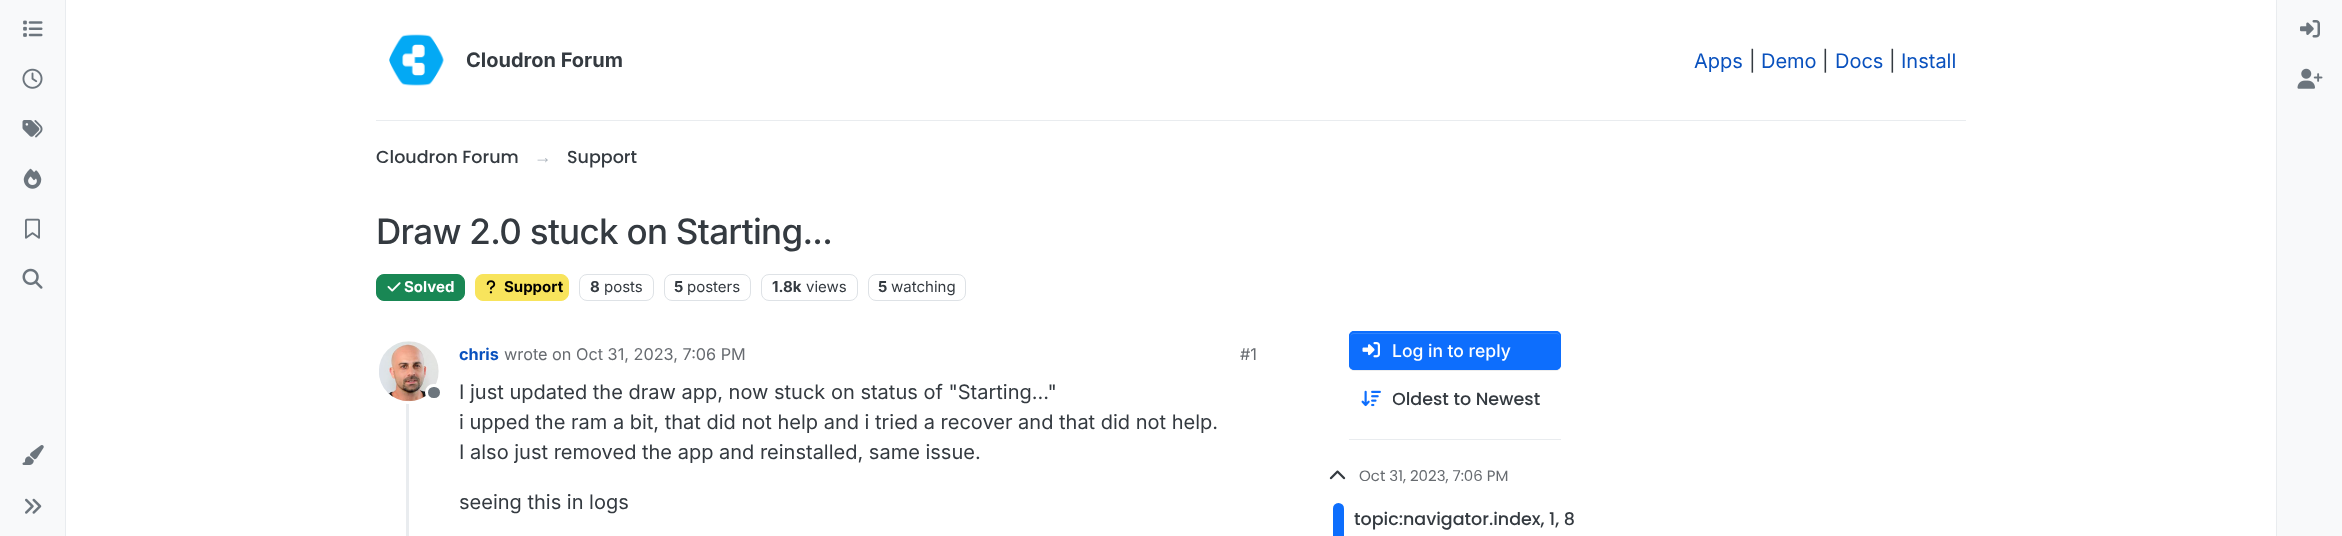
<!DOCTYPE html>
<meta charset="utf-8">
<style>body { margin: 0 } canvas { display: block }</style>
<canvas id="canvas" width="2342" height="536"></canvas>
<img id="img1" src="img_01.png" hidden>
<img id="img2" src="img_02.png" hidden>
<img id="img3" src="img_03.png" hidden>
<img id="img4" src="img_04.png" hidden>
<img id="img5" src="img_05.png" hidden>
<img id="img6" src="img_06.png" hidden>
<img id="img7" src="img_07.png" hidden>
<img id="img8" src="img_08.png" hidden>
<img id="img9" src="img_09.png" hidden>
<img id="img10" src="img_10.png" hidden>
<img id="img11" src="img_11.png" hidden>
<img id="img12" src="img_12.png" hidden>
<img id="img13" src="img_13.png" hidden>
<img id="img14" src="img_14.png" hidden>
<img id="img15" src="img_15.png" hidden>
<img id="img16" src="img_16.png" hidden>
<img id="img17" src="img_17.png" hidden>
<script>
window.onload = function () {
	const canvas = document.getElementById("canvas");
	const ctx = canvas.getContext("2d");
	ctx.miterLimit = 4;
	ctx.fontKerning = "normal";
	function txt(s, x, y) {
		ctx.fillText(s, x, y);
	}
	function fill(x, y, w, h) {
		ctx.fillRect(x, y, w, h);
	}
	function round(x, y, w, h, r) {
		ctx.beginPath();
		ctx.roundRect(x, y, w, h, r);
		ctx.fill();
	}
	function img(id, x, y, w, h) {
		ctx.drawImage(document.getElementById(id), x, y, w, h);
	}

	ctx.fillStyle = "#FFFFFF";
	fill(0, 0, 2342, 536);
	ctx.fillStyle = "#F8F9FA";
	fill(0, 0, 65, 536);
	ctx.fillStyle = "#E9ECEF";
	fill(65, 0, 1, 536);
	img("img1", 23, 20, 20, 17);
	img("img2", 22, 68, 21, 21);
	img("img3", 22, 120, 21, 18);
	img("img4", 23, 168, 19, 21);
	img("img5", 25, 218, 15, 21);
	img("img6", 22, 268, 21, 21);
	img("img7", 22, 445, 22, 20);
	img("img8", 25, 498, 17, 16);
	fill(376, 120, 1590, 1);
	img("img9", 389, 34, 55, 52);
	ctx.fillStyle = "#198754";
	ctx.beginPath();
	ctx.roundRect(376.5, 274.5, 88, 26, 7.5);
	ctx.fill();
	ctx.strokeStyle = "#198754";
	ctx.stroke();
	img("img10", 387, 282, 14, 10);
	ctx.fillStyle = "#F8E45C";
	ctx.beginPath();
	ctx.roundRect(475.5, 274.5, 93, 26, 7.5);
	ctx.fill();
	ctx.strokeStyle = "#F8E45C";
	ctx.stroke();
	img("img11", 486, 280, 10, 14);
	ctx.beginPath();
	ctx.roundRect(579.5, 274.5, 74, 26, 7.5);
	ctx.strokeStyle = "#DEE2E6";
	ctx.stroke();
	ctx.beginPath();
	ctx.roundRect(664.5, 274.5, 86, 26, 7.5);
	ctx.stroke();
	ctx.beginPath();
	ctx.roundRect(761.5, 274.5, 96, 26, 7.5);
	ctx.stroke();
	ctx.beginPath();
	ctx.roundRect(868.5, 274.5, 97, 26, 7.5);
	ctx.stroke();
	ctx.fillStyle = "#E9ECEF";
	fill(406, 403, 3, 133);
	ctx.beginPath();
	ctx.arc(408.5, 371.5, 31, 0, Math.PI * 2);
	ctx.strokeStyle = "#FFFFFF";
	ctx.lineWidth = 3;
	ctx.stroke();
	img("img12", 379, 341, 60, 61);
	ctx.fillStyle = "#6C757D";
	ctx.beginPath();
	ctx.roundRect(426.5, 385.5, 15, 14, 7);
	ctx.fill();
	ctx.stroke();
	ctx.fillStyle = "rgba(0, 0, 0, 0.07)";
	ctx.filter = "blur(0.5px)";
	ctx.beginPath();
	ctx.roundRect(1349, 333, 212, 38, 5);
	ctx.fill();
	ctx.filter = "none";
	ctx.fillStyle = "#0D6EFD";
	round(1349, 331, 212, 39, 5);
	ctx.fillStyle = "#3184FD";
	ctx.beginPath();
	ctx.moveTo(1354, 334);
	ctx.lineTo(1556, 334);
	ctx.bezierCurveTo(1558, 334, 1560, 335, 1560, 338);
	ctx.lineTo(1560, 337);
	ctx.bezierCurveTo(1560, 335, 1558, 333, 1556, 333);
	ctx.lineTo(1354, 333);
	ctx.bezierCurveTo(1352, 333, 1350, 335, 1350, 337);
	ctx.lineTo(1350, 338);
	ctx.bezierCurveTo(1350, 335, 1352, 334, 1354, 334);
	ctx.closePath();
	ctx.fill();
	ctx.beginPath();
	ctx.roundRect(1349.5, 331.5, 211, 38, 4.5);
	ctx.strokeStyle = "#0D6EFD";
	ctx.lineWidth = 1;
	ctx.stroke();
	img("img13", 1362, 342, 18, 16);
	img("img14", 1361, 390, 20, 17);
	ctx.fillStyle = "#E9ECEF";
	fill(1349, 439, 212, 1);
	img("img15", 1329, 470, 17, 10);
	fill(1336, 503, 3, 1);
	ctx.fillStyle = "#0D6EFD";
	round(1333, 503, 11, 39, 5.5);
	ctx.fillStyle = "#F8F9FA";
	fill(2277, 0, 65, 536);
	ctx.fillStyle = "#E9ECEF";
	fill(2276, 0, 1, 536);
	img("img16", 2300, 20, 20, 18);
	img("img17", 2297, 68, 26, 21);
	ctx.font = "bold 20px Inter";
	ctx.fillStyle = "#343A40";
	txt("Cloudron Forum", 466, 67);
	ctx.font = "20px Inter";
	ctx.fillStyle = "#0951BE";
	txt("Apps", 1694, 68);
	ctx.fillStyle = "#343A40";
	txt("|", 1749, 68);
	ctx.fillStyle = "#0951BE";
	txt("Demo", 1761, 68);
	ctx.fillStyle = "#343A40";
	txt("|", 1822, 68);
	ctx.fillStyle = "#0951BE";
	txt("Docs", 1835, 68);
	ctx.fillStyle = "#343A40";
	txt("|", 1889, 68);
	ctx.fillStyle = "#0951BE";
	txt("Install", 1901, 68);
	ctx.font = "500 17.5px Poppins";
	ctx.fillStyle = "#343A40";
	txt("Cloudron Forum", 376, 163);
	ctx.font = "17.5px Liberation Sans";
	ctx.fillStyle = "#ADB5BD";
	txt("→", 534, 163);
	ctx.font = "500 17.5px Poppins";
	ctx.fillStyle = "#343A40";
	txt("Support", 567, 163);
	ctx.letterSpacing = "-0.7px";
	ctx.font = "500 35px Inter";
	txt("Draw 2.0 stuck on Starting...", 376, 244);
	ctx.letterSpacing = "0px";
	ctx.font = "bold 15px Inter";
	ctx.fillStyle = "#FFFFFF";
	txt("Solved", 404, 292);
	ctx.fillStyle = "#000000";
	txt("Support", 504, 292);
	ctx.fillStyle = "#343A40";
	txt("8", 590, 292);
	ctx.font = "15px Inter";
	txt("posts", 604, 292);
	ctx.font = "bold 15px Inter";
	txt("5", 674, 292);
	ctx.font = "15px Inter";
	txt("posters", 687, 292);
	ctx.font = "bold 15px Inter";
	txt("1.8k", 772, 292);
	ctx.font = "15px Inter";
	txt("views", 806, 292);
	ctx.font = "bold 15px Inter";
	txt("5", 878, 292);
	ctx.font = "15px Inter";
	txt("watching", 891, 292);
	ctx.font = "bold 16.25px Inter";
	ctx.fillStyle = "#0951BE";
	txt("chris", 459, 360);
	ctx.font = "16.25px Inter";
	ctx.fillStyle = "#676B70";
	txt("wrote on Oct 31, 2023, 7:06 PM", 504, 360);
	txt("#1", 1240, 360);
	ctx.font = "20px Inter";
	ctx.fillStyle = "#343A40";
	txt("I just updated the draw app, now stuck on status of \"Starting...\"", 459, 399);
	txt("i upped the ram a bit, that did not help and i tried a recover and that did not help.", 459, 429);
	txt("I also just removed the app and reinstalled, same issue.", 459, 459);
	txt("seeing this in logs", 459, 509);
	ctx.font = "500 17.5px Inter";
	ctx.fillStyle = "#FFFFFF";
	txt("Log in to reply", 1392, 357);
	ctx.save();
	ctx.beginPath();
	ctx.rect(1393, 386, 147, 27);
	ctx.clip();
	ctx.font = "500 17.5px Poppins";
	ctx.fillStyle = "#343A40";
	txt("Oldest to Newest", 1392, 405);
	ctx.restore();
	ctx.font = "15px Poppins";
	ctx.fillStyle = "#676B70";
	txt("Oct 31, 2023, 7:06 PM", 1359, 481);
	ctx.font = "500 17.5px Poppins";
	ctx.fillStyle = "#343A40";
	txt("topic:navigator.index, 1, 8", 1354, 525);
};
</script>
